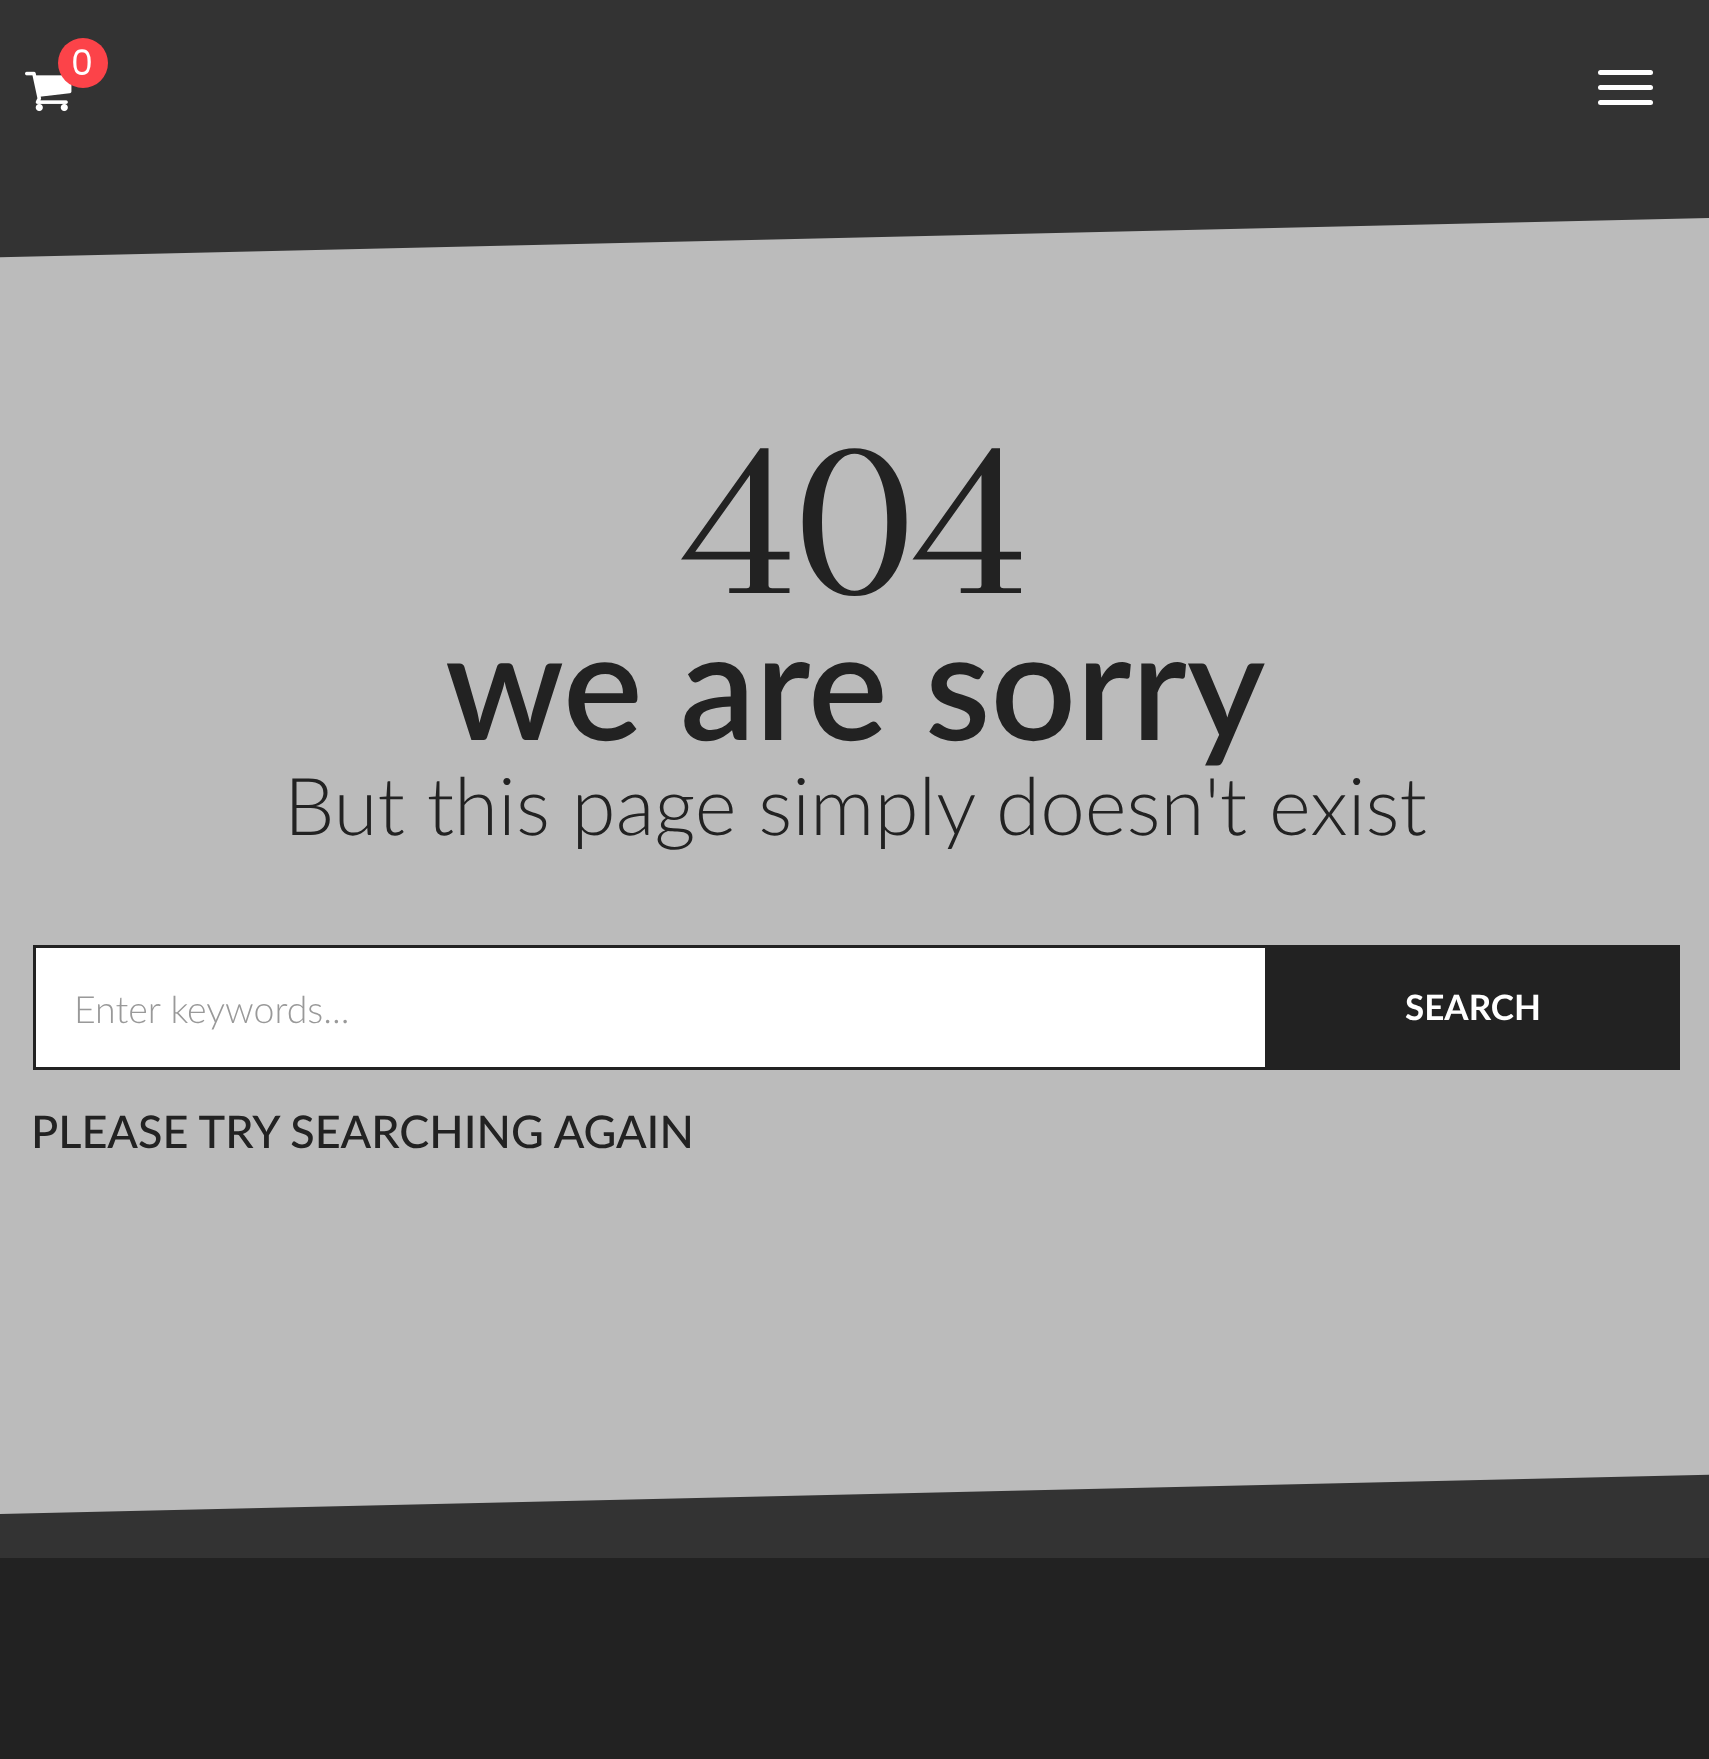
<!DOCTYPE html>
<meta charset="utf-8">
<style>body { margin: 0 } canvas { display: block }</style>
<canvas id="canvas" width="1709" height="1759"></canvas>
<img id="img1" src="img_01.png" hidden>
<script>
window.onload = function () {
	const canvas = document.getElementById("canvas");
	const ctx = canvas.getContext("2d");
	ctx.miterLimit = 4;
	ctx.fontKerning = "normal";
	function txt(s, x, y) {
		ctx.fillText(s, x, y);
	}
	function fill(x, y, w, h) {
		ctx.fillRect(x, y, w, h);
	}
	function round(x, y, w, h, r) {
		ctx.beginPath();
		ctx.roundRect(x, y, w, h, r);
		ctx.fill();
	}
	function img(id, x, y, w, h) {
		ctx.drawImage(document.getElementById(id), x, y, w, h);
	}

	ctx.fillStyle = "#222222";
	fill(0, 0, 1709, 1759);
	ctx.fillStyle = "#333333";
	fill(0, 0, 1709, 175);
	img("img1", 25, 71, 47, 41);
	ctx.fillStyle = "#FC4349";
	ctx.beginPath();
	ctx.arc(83, 63, 25, 0, Math.PI * 2);
	ctx.fill();
	ctx.fillStyle = "#FFFFFF";
	round(1598, 70, 55, 5, 2.5);
	round(1598, 85, 55, 5, 2.5);
	round(1598, 100, 55, 5, 2.5);
	ctx.fillStyle = "#BBBBBB";
	fill(0, 217, 1709, 1298);
	ctx.save();
	ctx.beginPath();
	ctx.rect(0, 175, 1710, 1383);
	ctx.clip();
	ctx.fillStyle = "#333333";
	ctx.beginPath();
	ctx.moveTo(-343, 140);
	ctx.lineTo(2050, 85);
	ctx.lineTo(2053, 210);
	ctx.lineTo(-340, 265);
	ctx.closePath();
	ctx.fill();
	ctx.restore();
	ctx.fillStyle = "#FFFFFF";
	ctx.beginPath();
	ctx.rect(34.5, 946.5, 1232, 122);
	ctx.fill();
	ctx.strokeStyle = "#222222";
	ctx.lineWidth = 3;
	ctx.stroke();
	ctx.fillStyle = "#222222";
	ctx.beginPath();
	ctx.rect(1270.5, 947.5, 407, 120);
	ctx.fill();
	ctx.lineWidth = 5;
	ctx.stroke();
	ctx.save();
	ctx.beginPath();
	ctx.rect(0, 175, 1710, 1383);
	ctx.clip();
	ctx.fillStyle = "#333333";
	ctx.beginPath();
	ctx.moveTo(-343, 1522);
	ctx.lineTo(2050, 1467);
	ctx.lineTo(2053, 1592);
	ctx.lineTo(-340, 1647);
	ctx.closePath();
	ctx.fill();
	ctx.restore();
	ctx.font = "35px Poppins";
	ctx.fillStyle = "#FFFFFF";
	txt("0", 71, 75);
	ctx.font = "250px Arapey";
	ctx.fillStyle = "#222222";
	txt("404", 681, 593);
	ctx.font = "600 150px Lato";
	txt("we are sorry", 445, 740);
	ctx.font = "300 80px Lato";
	txt("But this page simply doesn't exist", 284, 835);
	ctx.font = "300 37.5px Lato";
	ctx.fillStyle = "#999999";
	txt("Enter keywords...", 74, 1023);
	ctx.font = "bold 35px Lato";
	ctx.fillStyle = "#FFFFFF";
	txt("SEARCH", 1405, 1020);
	ctx.font = "500 45px Lato";
	ctx.fillStyle = "#222222";
	txt("PLEASE TRY SEARCHING AGAIN", 31, 1148);
};
</script>
